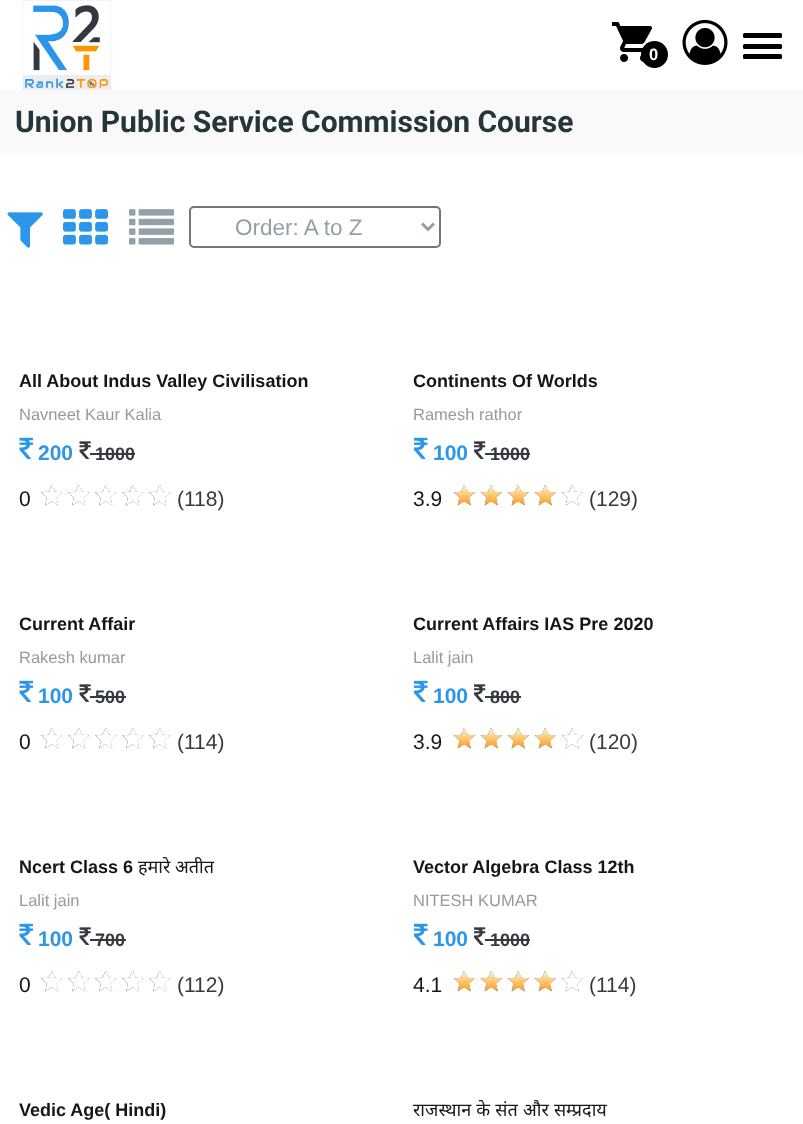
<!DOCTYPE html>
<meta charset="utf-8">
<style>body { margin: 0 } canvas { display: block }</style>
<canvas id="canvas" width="803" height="1124"></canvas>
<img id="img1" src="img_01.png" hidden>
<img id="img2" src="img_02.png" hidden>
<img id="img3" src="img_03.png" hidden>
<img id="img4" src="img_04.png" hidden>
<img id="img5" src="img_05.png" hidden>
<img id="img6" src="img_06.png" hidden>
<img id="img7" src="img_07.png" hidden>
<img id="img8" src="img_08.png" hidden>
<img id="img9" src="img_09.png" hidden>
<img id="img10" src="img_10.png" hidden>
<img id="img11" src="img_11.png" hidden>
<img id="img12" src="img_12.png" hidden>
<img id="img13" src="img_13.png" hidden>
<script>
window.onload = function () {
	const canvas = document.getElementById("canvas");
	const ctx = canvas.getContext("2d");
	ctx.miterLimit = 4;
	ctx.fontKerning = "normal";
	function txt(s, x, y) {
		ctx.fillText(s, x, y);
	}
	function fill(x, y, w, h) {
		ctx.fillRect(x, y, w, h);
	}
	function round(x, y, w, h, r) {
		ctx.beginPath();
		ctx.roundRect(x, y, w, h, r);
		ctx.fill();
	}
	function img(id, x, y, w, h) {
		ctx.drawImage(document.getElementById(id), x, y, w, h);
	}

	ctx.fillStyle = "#FFFFFF";
	fill(0, 0, 803, 1124);
	img("img1", 22, 0, 89, 90);
	img("img2", 612, 22, 40, 40);
	ctx.fillStyle = "#000000";
	ctx.beginPath();
	ctx.arc(654.5, 54.5, 13.5, 0, Math.PI * 2);
	ctx.fill();
	img("img3", 682, 19, 46, 46);
	round(743, 33, 39, 5, 1.5);
	round(743, 44, 39, 5, 1.5);
	round(743, 54, 39, 5, 1.5);
	ctx.fillStyle = "#F9F9F9";
	fill(0, 90, 803, 63);
	img("img4", 7, 212, 36, 36);
	img("img5", 63, 209, 45, 36);
	img("img6", 129, 209, 45, 36);
	ctx.beginPath();
	ctx.roundRect(190, 207, 250, 40, 4);
	ctx.strokeStyle = "#767676";
	ctx.lineWidth = 2;
	ctx.stroke();
	ctx.beginPath();
	ctx.moveTo(422, 223.5);
	ctx.lineTo(428, 229.5);
	ctx.lineTo(434, 223.5);
	ctx.strokeStyle = "#93A0A7";
	ctx.lineWidth = 3;
	ctx.stroke();
	img("img7", 19, 437, 15, 22);
	img("img8", 79, 441, 12, 18);
	ctx.fillStyle = "#343A40";
	fill(90, 453, 45, 2);
	img("img9", 41, 485, 22, 21);
	img("img9", 68, 485, 22, 21);
	img("img9", 95, 485, 22, 21);
	img("img9", 122, 485, 22, 21);
	img("img9", 149, 485, 22, 21);
	img("img10", 414, 437, 14, 22);
	img("img11", 474, 441, 12, 18);
	fill(485, 453, 45, 2);
	img("img12", 453, 485, 22, 21);
	img("img12", 480, 485, 22, 21);
	img("img12", 507, 485, 22, 21);
	img("img12", 534, 485, 22, 21);
	img("img13", 561, 485, 22, 21);
	img("img7", 19, 680, 15, 22);
	img("img8", 79, 684, 12, 18);
	fill(90, 696, 36, 2);
	img("img9", 41, 728, 22, 21);
	img("img9", 68, 728, 22, 21);
	img("img9", 95, 728, 22, 21);
	img("img9", 122, 728, 22, 21);
	img("img9", 149, 728, 22, 21);
	img("img10", 414, 680, 14, 22);
	img("img11", 474, 684, 12, 18);
	fill(485, 696, 36, 2);
	img("img12", 453, 728, 22, 21);
	img("img12", 480, 728, 22, 21);
	img("img12", 507, 728, 22, 21);
	img("img12", 534, 728, 22, 21);
	img("img13", 561, 728, 22, 21);
	img("img7", 19, 923, 15, 22);
	img("img8", 79, 927, 12, 18);
	fill(90, 939, 36, 2);
	img("img9", 41, 971, 22, 21);
	img("img9", 68, 971, 22, 21);
	img("img9", 95, 971, 22, 21);
	img("img9", 122, 971, 22, 21);
	img("img9", 149, 971, 22, 21);
	img("img10", 414, 923, 14, 22);
	img("img11", 474, 927, 12, 18);
	fill(485, 939, 45, 2);
	img("img12", 453, 971, 22, 21);
	img("img12", 480, 971, 22, 21);
	img("img12", 507, 971, 22, 21);
	img("img12", 534, 971, 22, 21);
	img("img13", 561, 971, 22, 21);
	ctx.font = "bold 16.5px Liberation Sans";
	ctx.fillStyle = "#FFFFFF";
	txt("0", 649, 60);
	ctx.font = "bold 30px Roboto";
	ctx.fillStyle = "#24353B";
	txt("Union Public Service Commission Course", 15, 132);
	ctx.font = "22.5px Liberation Sans";
	ctx.fillStyle = "#93A0A7";
	txt("Order: A to Z", 235, 235);
	ctx.font = "bold 18px Liberation Sans";
	ctx.fillStyle = "#151617";
	txt("All About Indus Valley Civilisation", 19, 387);
	ctx.font = "16.5px Liberation Sans";
	ctx.fillStyle = "#999999";
	txt("Navneet Kaur Kalia", 19, 420);
	ctx.font = "bold 21px Liberation Sans";
	ctx.fillStyle = "#2C97EA";
	txt("200", 38, 460);
	ctx.font = "bold 18px Liberation Sans";
	ctx.fillStyle = "#343A40";
	txt("1000", 95, 460);
	ctx.font = "21px Liberation Sans";
	ctx.fillStyle = "#151617";
	txt("0", 19, 506);
	ctx.fillStyle = "#343A40";
	txt("(118)", 177, 506);
	ctx.font = "bold 18px Liberation Sans";
	ctx.fillStyle = "#151617";
	txt("Continents Of Worlds", 413, 387);
	ctx.font = "16.5px Liberation Sans";
	ctx.fillStyle = "#999999";
	txt("Ramesh rathor", 413, 420);
	ctx.font = "bold 21px Liberation Sans";
	ctx.fillStyle = "#2C97EA";
	txt("100", 433, 460);
	ctx.font = "bold 18px Liberation Sans";
	ctx.fillStyle = "#343A40";
	txt("1000", 490, 460);
	ctx.font = "21px Liberation Sans";
	ctx.fillStyle = "#151617";
	txt("3.9", 413, 506);
	ctx.fillStyle = "#343A40";
	txt("(129)", 589, 506);
	ctx.font = "bold 18px Liberation Sans";
	ctx.fillStyle = "#151617";
	txt("Current Affair", 19, 630);
	ctx.font = "16.5px Liberation Sans";
	ctx.fillStyle = "#999999";
	txt("Rakesh kumar", 19, 663);
	ctx.font = "bold 21px Liberation Sans";
	ctx.fillStyle = "#2C97EA";
	txt("100", 38, 703);
	ctx.font = "bold 18px Liberation Sans";
	ctx.fillStyle = "#343A40";
	txt("500", 95, 703);
	ctx.font = "21px Liberation Sans";
	ctx.fillStyle = "#151617";
	txt("0", 19, 749);
	ctx.fillStyle = "#343A40";
	txt("(114)", 177, 749);
	ctx.font = "bold 18px Liberation Sans";
	ctx.fillStyle = "#151617";
	txt("Current Affairs IAS Pre 2020", 413, 630);
	ctx.font = "16.5px Liberation Sans";
	ctx.fillStyle = "#999999";
	txt("Lalit jain", 413, 663);
	ctx.font = "bold 21px Liberation Sans";
	ctx.fillStyle = "#2C97EA";
	txt("100", 433, 703);
	ctx.font = "bold 18px Liberation Sans";
	ctx.fillStyle = "#343A40";
	txt("800", 490, 703);
	ctx.font = "21px Liberation Sans";
	ctx.fillStyle = "#151617";
	txt("3.9", 413, 749);
	ctx.fillStyle = "#343A40";
	txt("(120)", 589, 749);
	ctx.font = "bold 18px Liberation Sans";
	ctx.fillStyle = "#151617";
	txt("Ncert Class 6", 19, 873);
	ctx.font = "18px Noto Sans";
	txt("हमारे", 138, 873);
	txt("अतीत", 175, 873);
	ctx.font = "16.5px Liberation Sans";
	ctx.fillStyle = "#999999";
	txt("Lalit jain", 19, 906);
	ctx.font = "bold 21px Liberation Sans";
	ctx.fillStyle = "#2C97EA";
	txt("100", 38, 946);
	ctx.font = "bold 18px Liberation Sans";
	ctx.fillStyle = "#343A40";
	txt("700", 95, 946);
	ctx.font = "21px Liberation Sans";
	ctx.fillStyle = "#151617";
	txt("0", 19, 992);
	ctx.fillStyle = "#343A40";
	txt("(112)", 177, 992);
	ctx.font = "bold 18px Liberation Sans";
	ctx.fillStyle = "#151617";
	txt("Vector Algebra Class 12th", 413, 873);
	ctx.font = "16.5px Liberation Sans";
	ctx.fillStyle = "#999999";
	txt("NITESH KUMAR", 413, 906);
	ctx.font = "bold 21px Liberation Sans";
	ctx.fillStyle = "#2C97EA";
	txt("100", 433, 946);
	ctx.font = "bold 18px Liberation Sans";
	ctx.fillStyle = "#343A40";
	txt("1000", 490, 946);
	ctx.font = "21px Liberation Sans";
	ctx.fillStyle = "#151617";
	txt("4.1", 413, 992);
	ctx.fillStyle = "#343A40";
	txt("(114)", 589, 992);
	ctx.font = "bold 18px Liberation Sans";
	ctx.fillStyle = "#151617";
	txt("Vedic Age( Hindi)", 19, 1116);
	ctx.wordSpacing = "0.5px";
	ctx.font = "18px Noto Sans";
	txt("राजस्थान के संत और सम्प्रदाय", 413, 1116);
};
</script>
